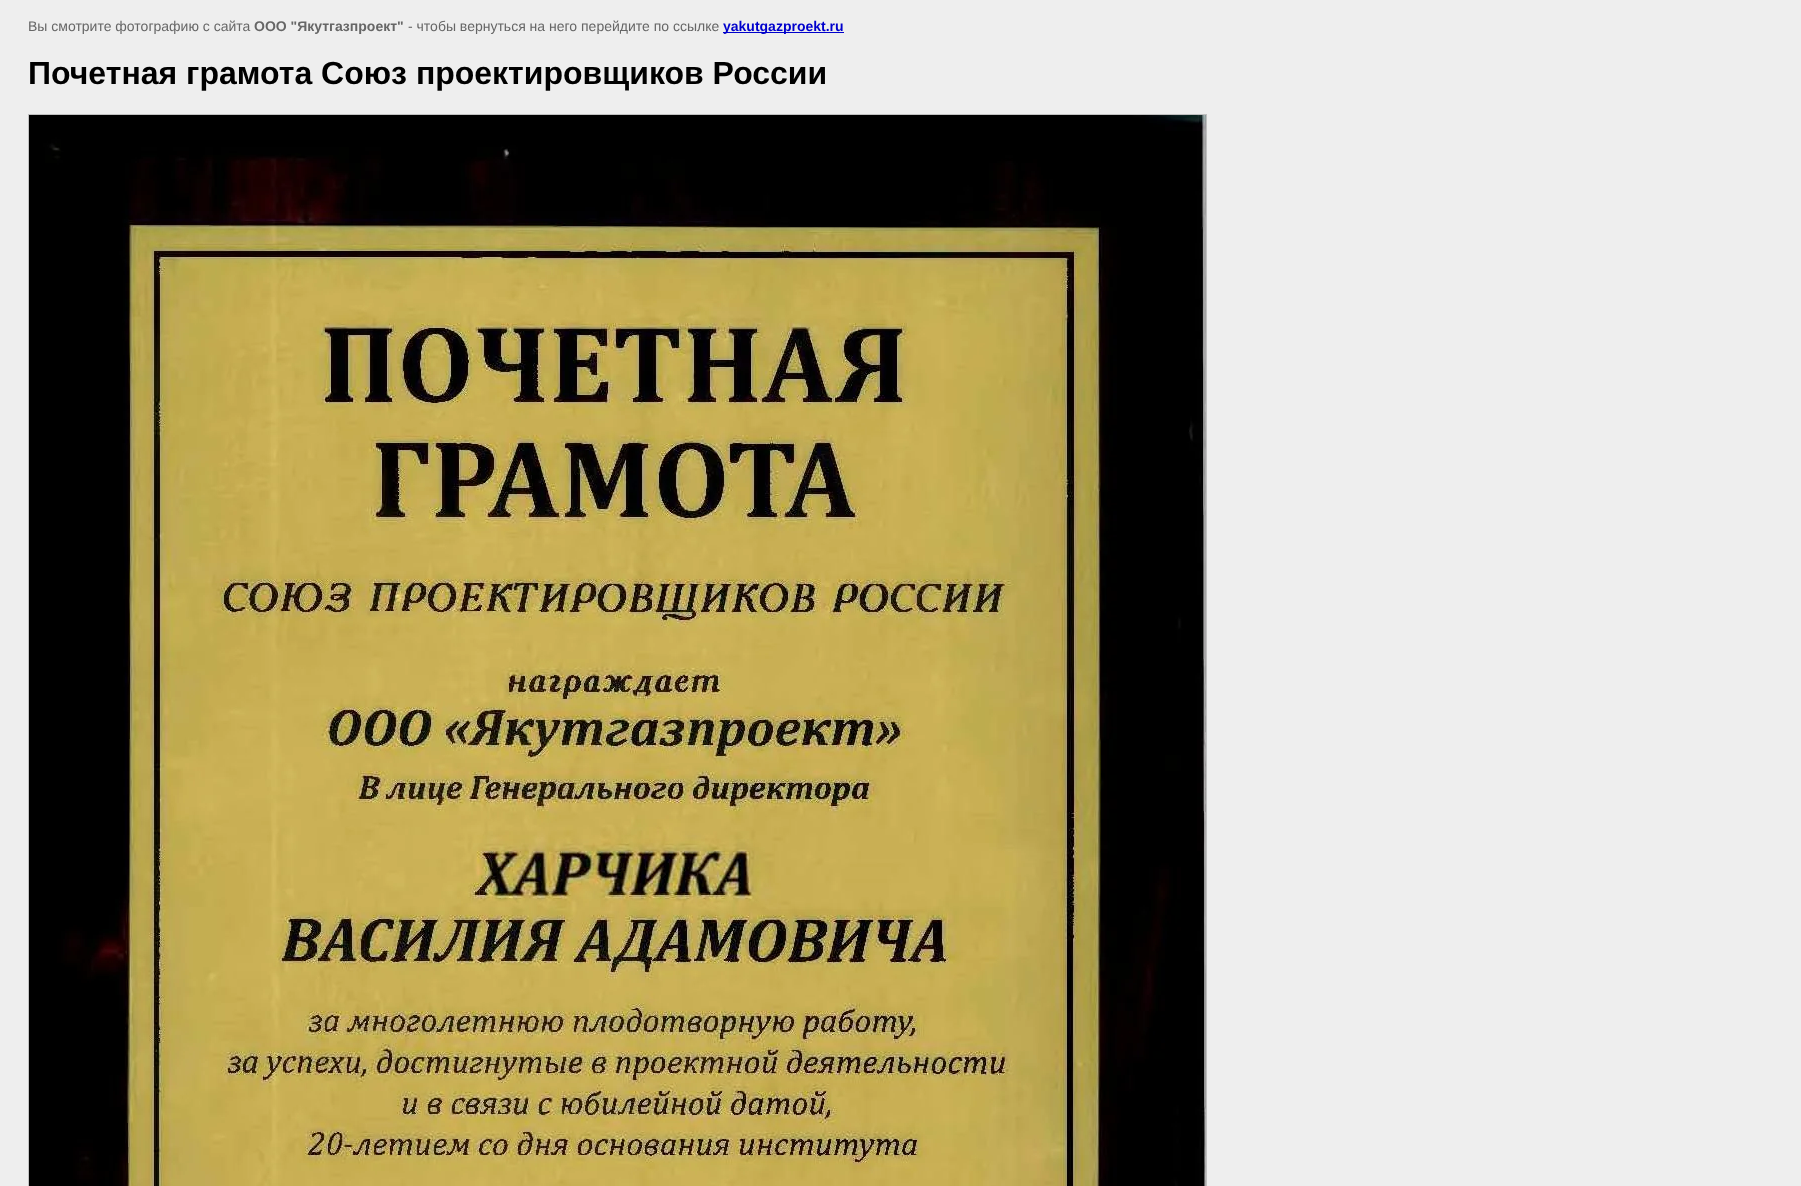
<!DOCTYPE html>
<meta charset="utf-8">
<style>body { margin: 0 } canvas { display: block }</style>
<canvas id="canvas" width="1801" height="1186"></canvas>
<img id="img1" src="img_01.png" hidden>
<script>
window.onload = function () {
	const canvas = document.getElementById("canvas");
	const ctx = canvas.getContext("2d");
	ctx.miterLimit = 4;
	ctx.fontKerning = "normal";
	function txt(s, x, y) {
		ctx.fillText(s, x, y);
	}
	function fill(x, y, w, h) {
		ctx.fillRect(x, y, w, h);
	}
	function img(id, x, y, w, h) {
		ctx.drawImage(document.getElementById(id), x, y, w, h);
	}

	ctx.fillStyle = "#EEEEEE";
	fill(0, 0, 1801, 1186);
	ctx.fillStyle = "#0000CC";
	fill(723, 32, 121, 1);
	ctx.strokeStyle = "#C0C0C0";
	ctx.strokeRect(28.5, 114.5, 1178, 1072);
	img("img1", 29, 115, 1177, 1071);
	ctx.font = "14px Liberation Sans";
	ctx.fillStyle = "#666666";
	txt("Вы смотрите фотографию с сайта", 28, 31);
	ctx.font = "bold 14px Liberation Sans";
	txt("ООО \"Якутгазпроект\"", 254, 31);
	ctx.font = "14px Liberation Sans";
	txt("- чтобы вернуться на него перейдите по ссылке", 408, 31);
	ctx.font = "bold 14px Liberation Sans";
	ctx.fillStyle = "#0000CC";
	txt("yakutgazproekt.ru", 723, 31);
	ctx.font = "bold 32px Liberation Sans";
	ctx.fillStyle = "#000000";
	txt("Почетная грамота Союз проектировщиков России", 28, 84);
};
</script>
